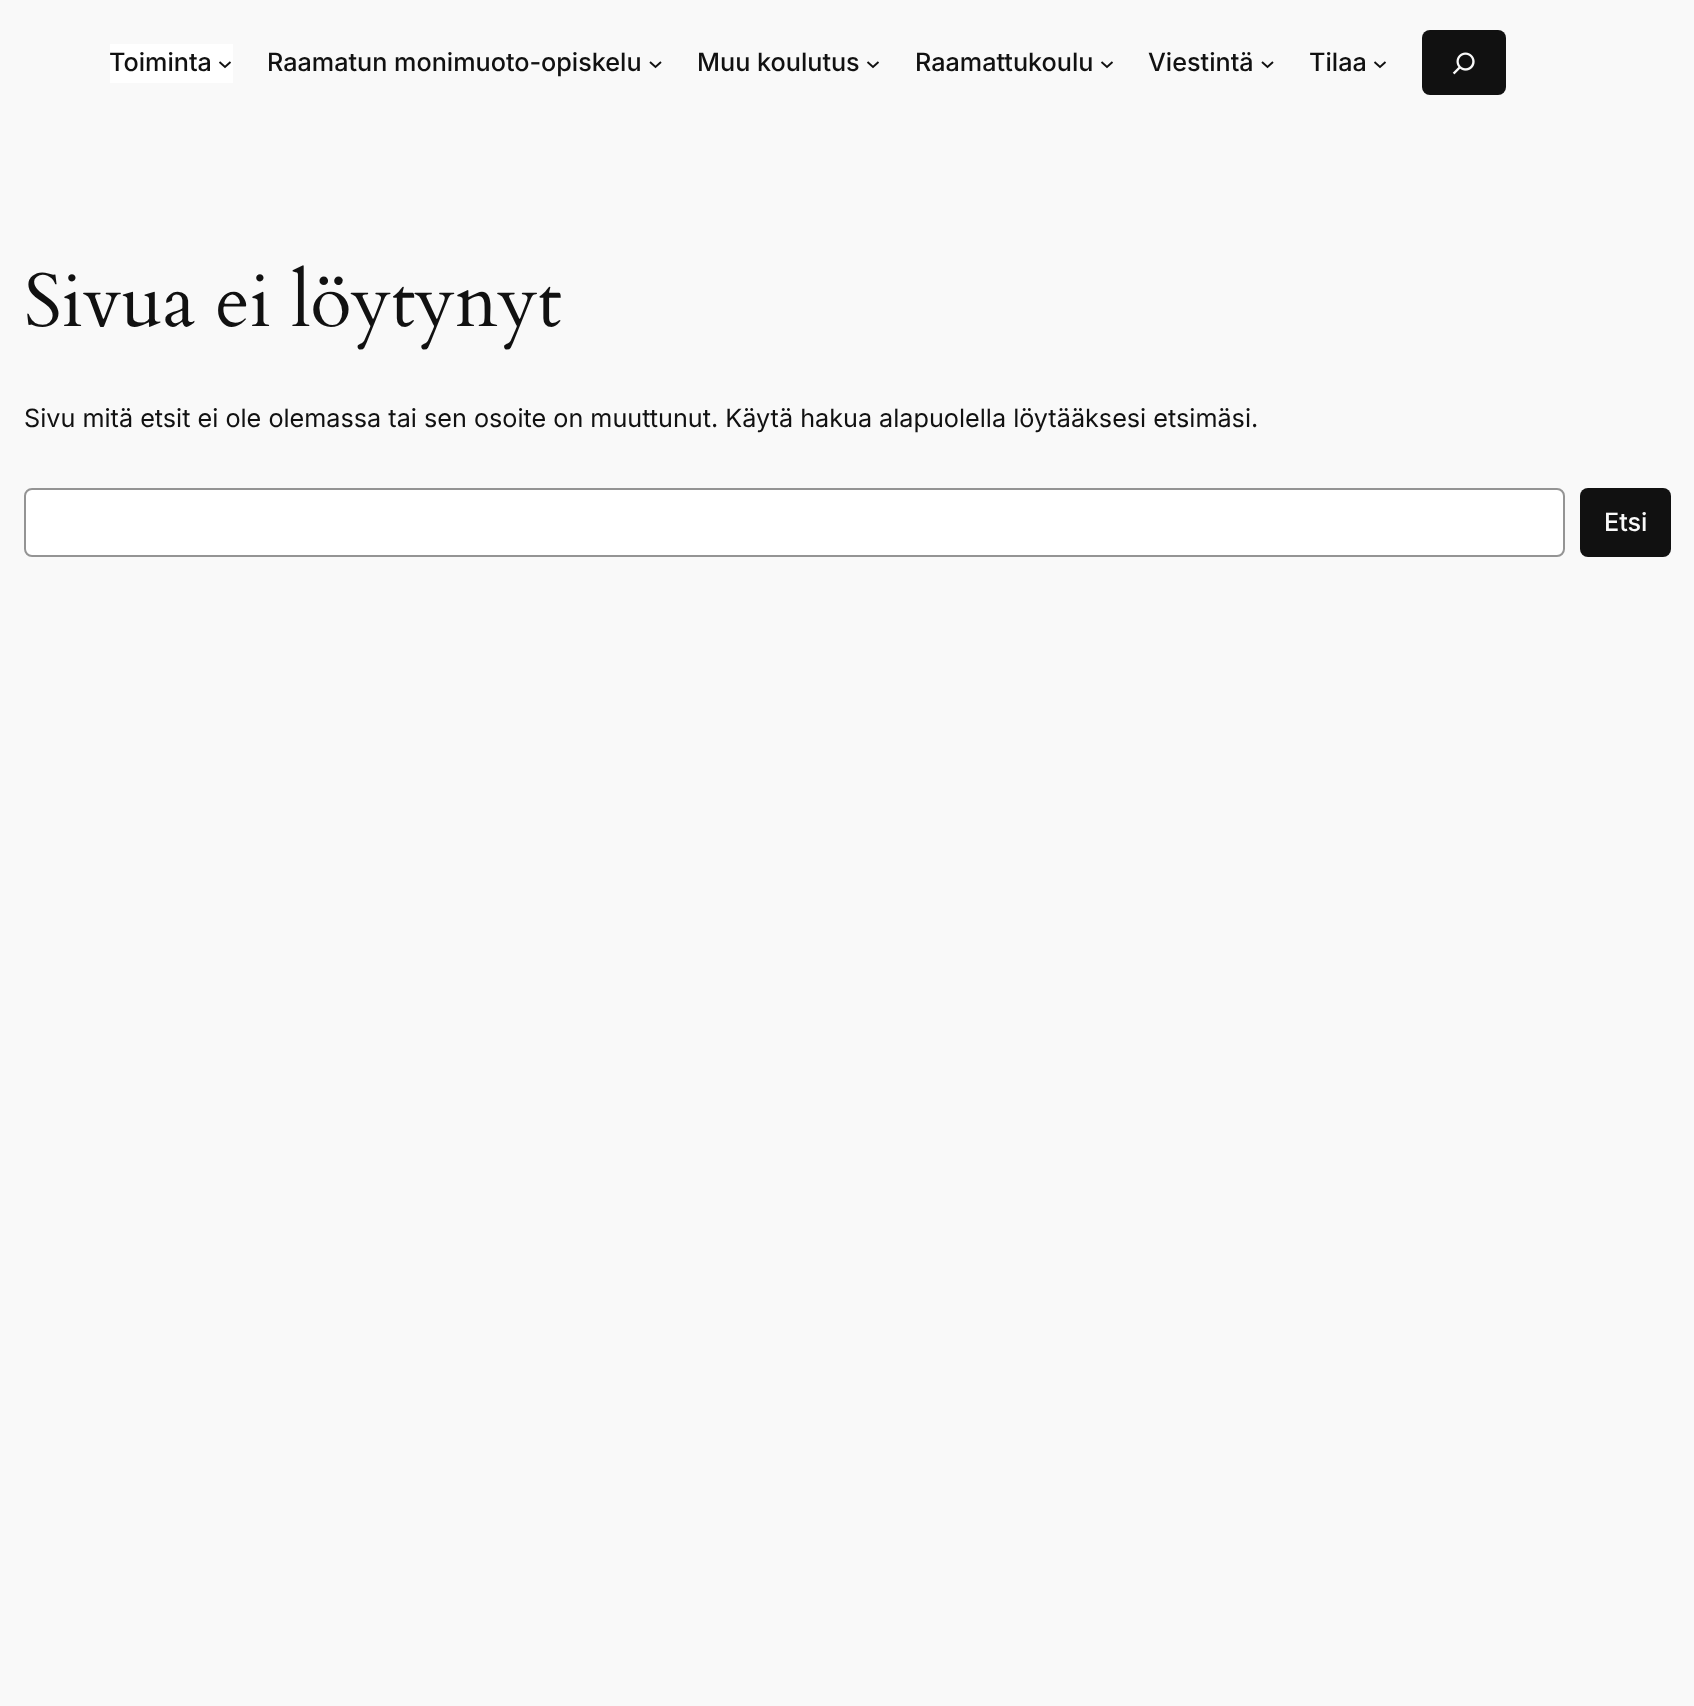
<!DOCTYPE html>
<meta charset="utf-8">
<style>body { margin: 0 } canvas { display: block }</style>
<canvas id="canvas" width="1694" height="1706"></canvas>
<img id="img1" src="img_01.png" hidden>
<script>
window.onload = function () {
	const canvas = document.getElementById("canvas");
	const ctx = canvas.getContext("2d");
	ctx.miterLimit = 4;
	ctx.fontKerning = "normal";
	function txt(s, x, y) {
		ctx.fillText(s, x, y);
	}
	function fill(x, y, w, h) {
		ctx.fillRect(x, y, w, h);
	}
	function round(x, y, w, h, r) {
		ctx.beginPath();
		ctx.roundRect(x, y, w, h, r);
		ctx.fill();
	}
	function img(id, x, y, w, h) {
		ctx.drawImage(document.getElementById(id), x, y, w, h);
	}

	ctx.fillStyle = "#F9F9F9";
	fill(0, 0, 1694, 1706);
	ctx.fillStyle = "#FFFFFF";
	fill(110, 44, 123, 39);
	ctx.beginPath();
	ctx.moveTo(219.5, 62);
	ctx.lineTo(225, 67);
	ctx.lineTo(230.5, 62);
	ctx.strokeStyle = "#111111";
	ctx.lineWidth = 1.9;
	ctx.stroke();
	ctx.beginPath();
	ctx.moveTo(650, 62);
	ctx.lineTo(655.5, 67);
	ctx.lineTo(661, 62);
	ctx.stroke();
	ctx.beginPath();
	ctx.moveTo(867.5, 62);
	ctx.lineTo(873, 67);
	ctx.lineTo(878.5, 62);
	ctx.stroke();
	ctx.beginPath();
	ctx.moveTo(1101.5, 62);
	ctx.lineTo(1107, 67);
	ctx.lineTo(1112.5, 62);
	ctx.stroke();
	ctx.beginPath();
	ctx.moveTo(1262, 62);
	ctx.lineTo(1267.5, 67);
	ctx.lineTo(1273, 62);
	ctx.stroke();
	ctx.beginPath();
	ctx.moveTo(1374.5, 62);
	ctx.lineTo(1380, 67);
	ctx.lineTo(1385.5, 62);
	ctx.stroke();
	ctx.fillStyle = "#111111";
	round(1422, 30, 84, 65, 8);
	img("img1", 1452, 52, 23, 23);
	ctx.fillStyle = "#FFFFFF";
	ctx.beginPath();
	ctx.roundRect(25, 489, 1539, 67, 7);
	ctx.fill();
	ctx.strokeStyle = "#949494";
	ctx.lineWidth = 2;
	ctx.stroke();
	ctx.fillStyle = "#111111";
	round(1580, 488, 91, 69, 8);
	ctx.font = "500 25.2px Inter";
	txt("Toiminta", 109, 71);
	txt("Raamatun monimuoto-opiskelu", 267, 71);
	txt("Muu koulutus", 697, 71);
	txt("Raamattukoulu", 915, 71);
	txt("Viestintä", 1148, 71);
	txt("Tilaa", 1309, 71);
	ctx.font = "75.5px Cardo";
	txt("Sivua ei löytynyt", 24, 326);
	ctx.font = "25.2px Inter";
	txt("Sivu mitä etsit ei ole olemassa tai sen osoite on muuttunut. Käytä hakua alapuolella löytääksesi etsimäsi.", 24, 427);
	ctx.font = "500 25.2px Inter";
	ctx.fillStyle = "#F9F9F9";
	txt("Etsi", 1604, 531);
};
</script>
